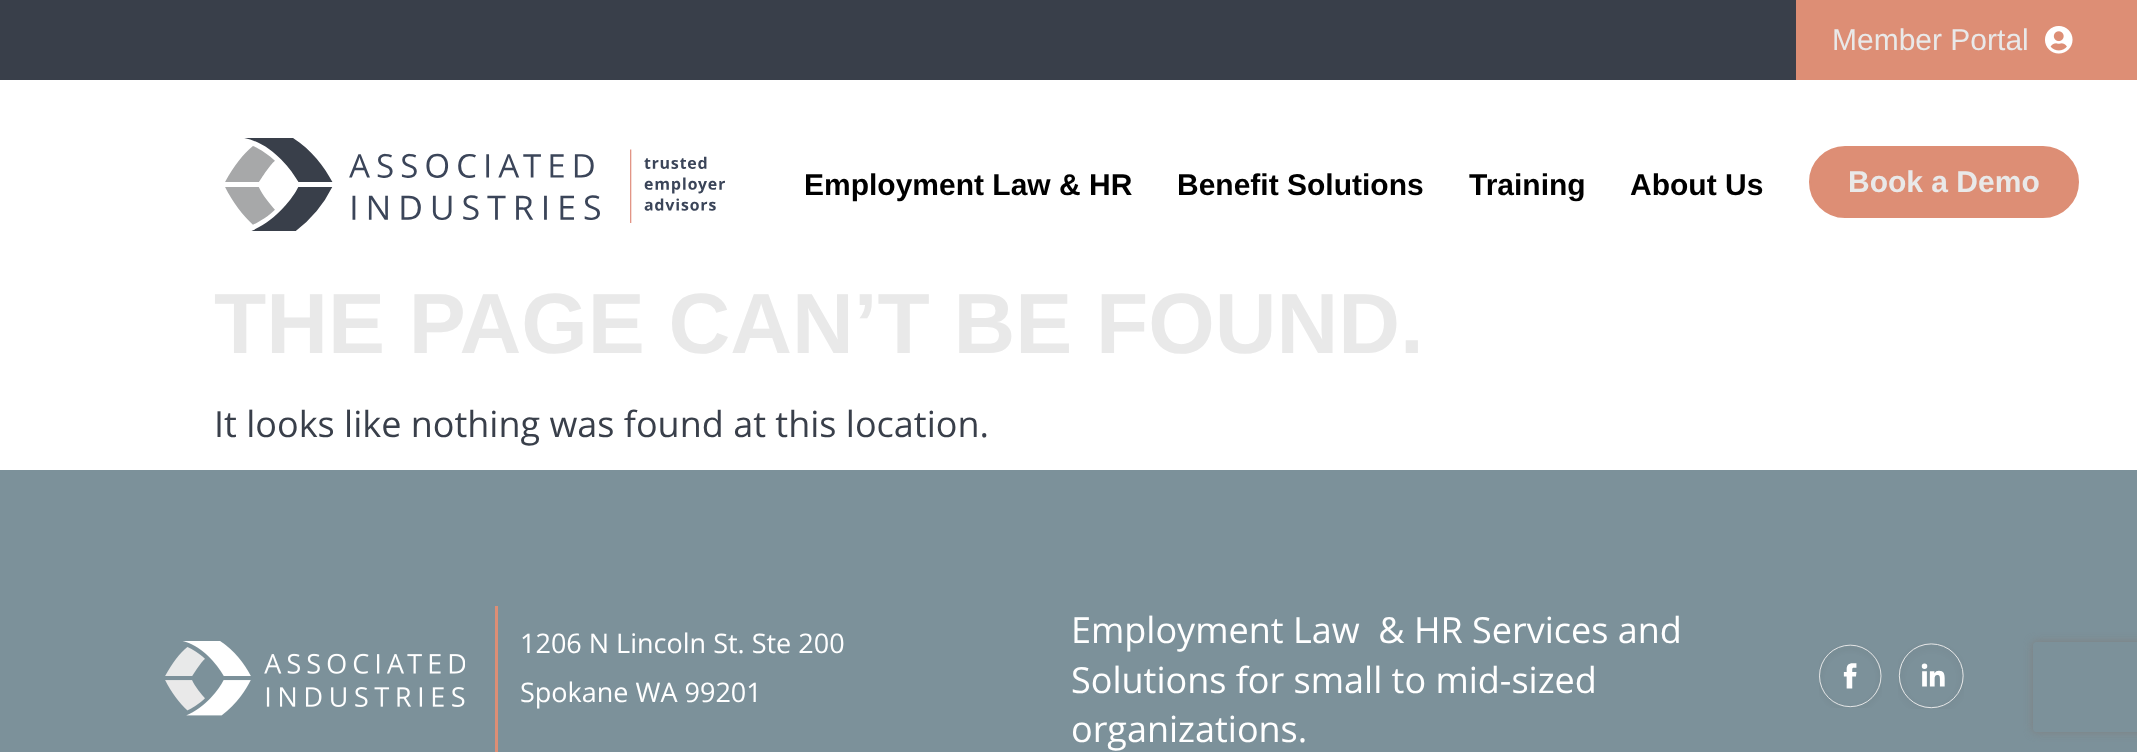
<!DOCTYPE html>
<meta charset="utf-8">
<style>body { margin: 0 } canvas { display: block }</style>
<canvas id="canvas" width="2137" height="752"></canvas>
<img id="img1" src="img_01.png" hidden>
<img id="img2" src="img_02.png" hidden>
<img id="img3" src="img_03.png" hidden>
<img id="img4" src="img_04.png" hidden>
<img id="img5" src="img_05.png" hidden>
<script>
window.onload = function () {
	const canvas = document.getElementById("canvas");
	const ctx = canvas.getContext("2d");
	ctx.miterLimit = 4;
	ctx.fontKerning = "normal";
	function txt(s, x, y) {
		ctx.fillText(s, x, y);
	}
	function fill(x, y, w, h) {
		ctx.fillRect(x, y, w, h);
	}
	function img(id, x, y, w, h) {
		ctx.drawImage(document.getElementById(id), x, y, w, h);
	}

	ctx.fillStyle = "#FFFFFF";
	fill(0, 0, 2137, 752);
	ctx.fillStyle = "#393F4A";
	fill(0, 0, 1796, 80);
	ctx.fillStyle = "#DD8E75";
	fill(1796, 0, 341, 80);
	img("img1", 2045, 26, 28, 28);
	img("img2", 225, 138, 500, 93);
	ctx.beginPath();
	ctx.roundRect(1810, 147, 268, 70, 35);
	ctx.fill();
	ctx.strokeStyle = "#DD8E75";
	ctx.lineWidth = 2;
	ctx.stroke();
	ctx.fillStyle = "#7C919A";
	fill(0, 470, 2137, 282);
	ctx.fillStyle = "#DD8E75";
	fill(495, 606, 3, 146);
	img("img3", 165, 641, 300, 75);
	img("img4", 1819, 644, 63, 64);
	img("img5", 1898, 643, 66, 66);
	ctx.save();
	ctx.beginPath();
	ctx.moveTo(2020, 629);
	ctx.lineTo(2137, 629);
	ctx.lineTo(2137, 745);
	ctx.lineTo(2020, 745);
	ctx.closePath();
	ctx.moveTo(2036, 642);
	ctx.lineTo(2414, 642);
	ctx.bezierCurveTo(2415.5, 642, 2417, 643.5, 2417, 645);
	ctx.lineTo(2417, 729);
	ctx.bezierCurveTo(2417, 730.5, 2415.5, 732, 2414, 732);
	ctx.lineTo(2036, 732);
	ctx.bezierCurveTo(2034.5, 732, 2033, 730.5, 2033, 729);
	ctx.lineTo(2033, 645);
	ctx.bezierCurveTo(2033, 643.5, 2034.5, 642, 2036, 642);
	ctx.closePath();
	ctx.clip("evenodd");
	ctx.fillStyle = "#808080";
	ctx.filter = "blur(4px)";
	ctx.beginPath();
	ctx.roundRect(2033, 642, 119, 90, 3);
	ctx.fill();
	ctx.filter = "none";
	ctx.restore();
	ctx.font = "30px Liberation Sans";
	ctx.fillStyle = "#E9E9E9";
	txt("Member Portal", 1832, 50);
	ctx.font = "bold 30px Liberation Sans";
	ctx.fillStyle = "#000000";
	txt("Employment Law & HR", 804, 195);
	txt("Benefit Solutions", 1177, 195);
	txt("Training", 1469, 195);
	txt("About Us", 1630, 195);
	ctx.fillStyle = "#E9E9E9";
	txt("Book a Demo", 1848, 192);
	ctx.font = "bold 85.5px Liberation Sans";
	txt("THE PAGE CAN’T BE FOUND.", 214, 353);
	ctx.font = "36px Open Sans";
	ctx.fillStyle = "#393F4A";
	txt("It looks like nothing was found at this location.", 214, 437);
	ctx.font = "27px Open Sans";
	ctx.fillStyle = "#FFFFFF";
	txt("1206 N Lincoln St. Ste 200", 520, 653);
	txt("Spokane WA 99201", 520, 702);
	ctx.font = "36px Open Sans";
	txt("Employment Law  & HR Services and", 1071, 643);
	txt("Solutions for small to mid-sized", 1071, 693);
	txt("organizations.", 1071, 742);
};
</script>
